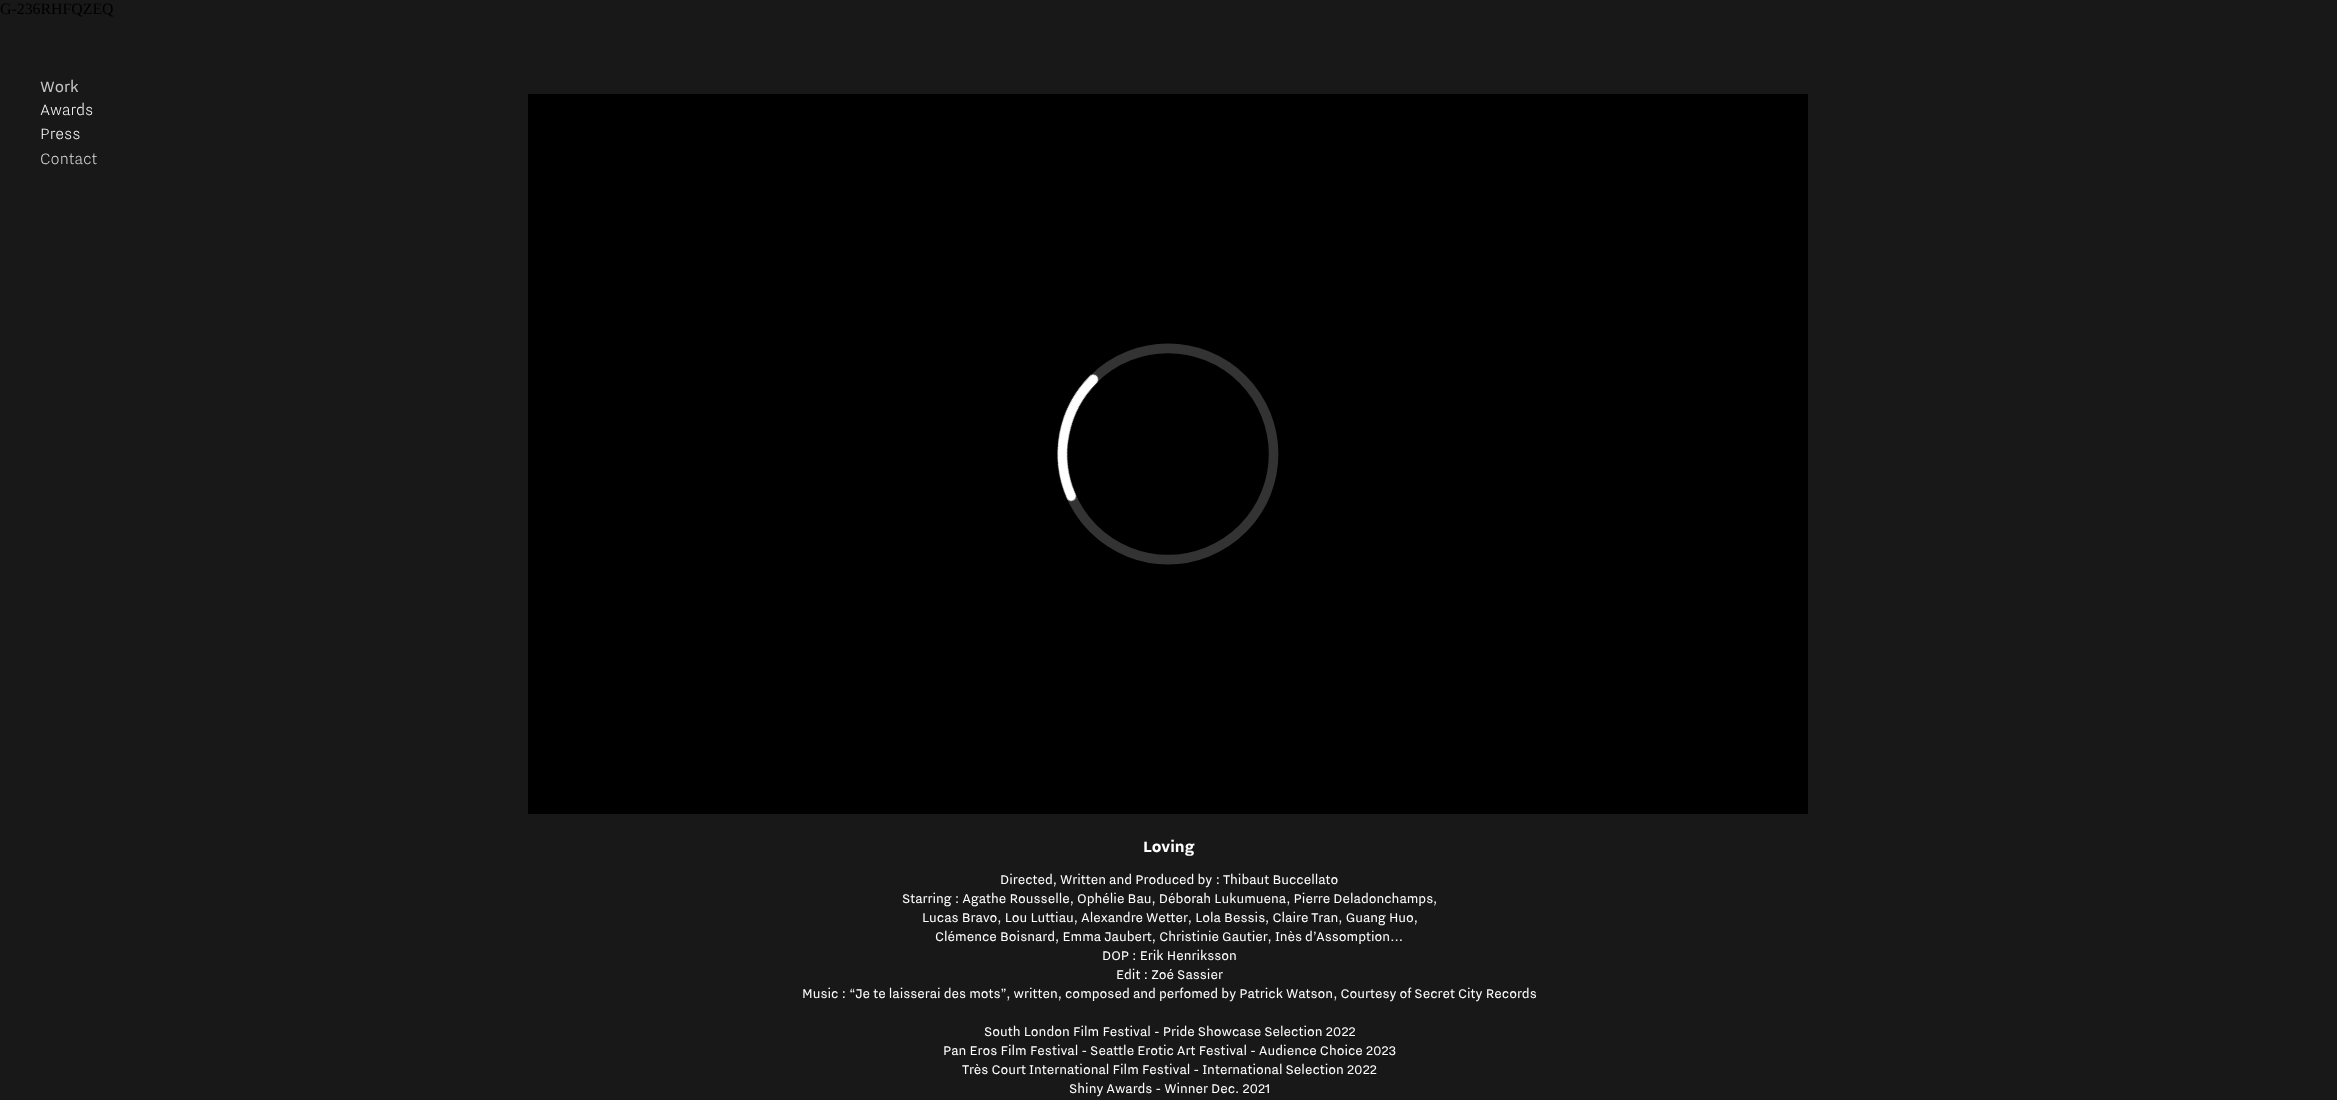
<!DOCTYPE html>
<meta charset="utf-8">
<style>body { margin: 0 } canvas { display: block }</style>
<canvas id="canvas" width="2337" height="1100"></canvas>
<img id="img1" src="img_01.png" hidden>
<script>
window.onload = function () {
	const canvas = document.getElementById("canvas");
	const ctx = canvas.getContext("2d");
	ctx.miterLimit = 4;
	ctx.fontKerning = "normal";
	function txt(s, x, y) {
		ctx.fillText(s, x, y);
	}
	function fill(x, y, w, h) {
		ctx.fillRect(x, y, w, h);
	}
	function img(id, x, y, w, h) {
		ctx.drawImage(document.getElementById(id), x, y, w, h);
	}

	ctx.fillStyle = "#181818";
	fill(0, 0, 2337, 1100);
	img("img1", 528, 94, 1280, 720);
	ctx.font = "15.85px Liberation Serif";
	ctx.fillStyle = "#000000";
	txt("G-236RHFQZEQ", 0, 14);
	ctx.font = "19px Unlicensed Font";
	ctx.fillStyle = "#C5C5C5";
	txt("Work", 40, 92);
	ctx.font = "300 19px 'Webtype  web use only'";
	ctx.fillStyle = "#FFFFFF";
	txt("Awards", 40, 115);
	txt("Press", 40, 139);
	ctx.fillStyle = "#DCDCDC";
	txt("Contact", 40, 164);
	ctx.font = "bold 19px Unlicensed Font";
	ctx.fillStyle = "#FFFFFF";
	txt("Loving", 1143, 852);
	ctx.font = "15.85px Unlicensed Font";
	txt("Directed, Written and Produced by : Thibaut Buccellato", 1000, 884);
	txt("Starring : Agathe Rousselle, Ophélie Bau, Déborah Lukumuena, Pierre Deladonchamps,", 902, 903);
	txt("Lucas Bravo, Lou Luttiau, Alexandre Wetter, Lola Bessis, Claire Tran, Guang Huo,", 922, 922);
	txt("Clémence Boisnard, Emma Jaubert, Christinie Gautier, Inès d’Assomption...", 935, 941);
	txt("DOP : Erik Henriksson", 1102, 960);
	txt("Edit : Zoé Sassier", 1116, 979);
	txt("Music : “Je te laisserai des mots”, written, composed and perfomed by Patrick Watson, Courtesy of Secret City Records", 802, 998);
	txt("South London Film Festival - Pride Showcase Selection 2022", 984, 1036);
	txt("Pan Eros Film Festival - Seattle Erotic Art Festival - Audience Choice 2023", 943, 1055);
	txt("Très Court International Film Festival - International Selection 2022", 962, 1074);
	txt("Shiny Awards - Winner Dec. 2021", 1069, 1093);
};
</script>
